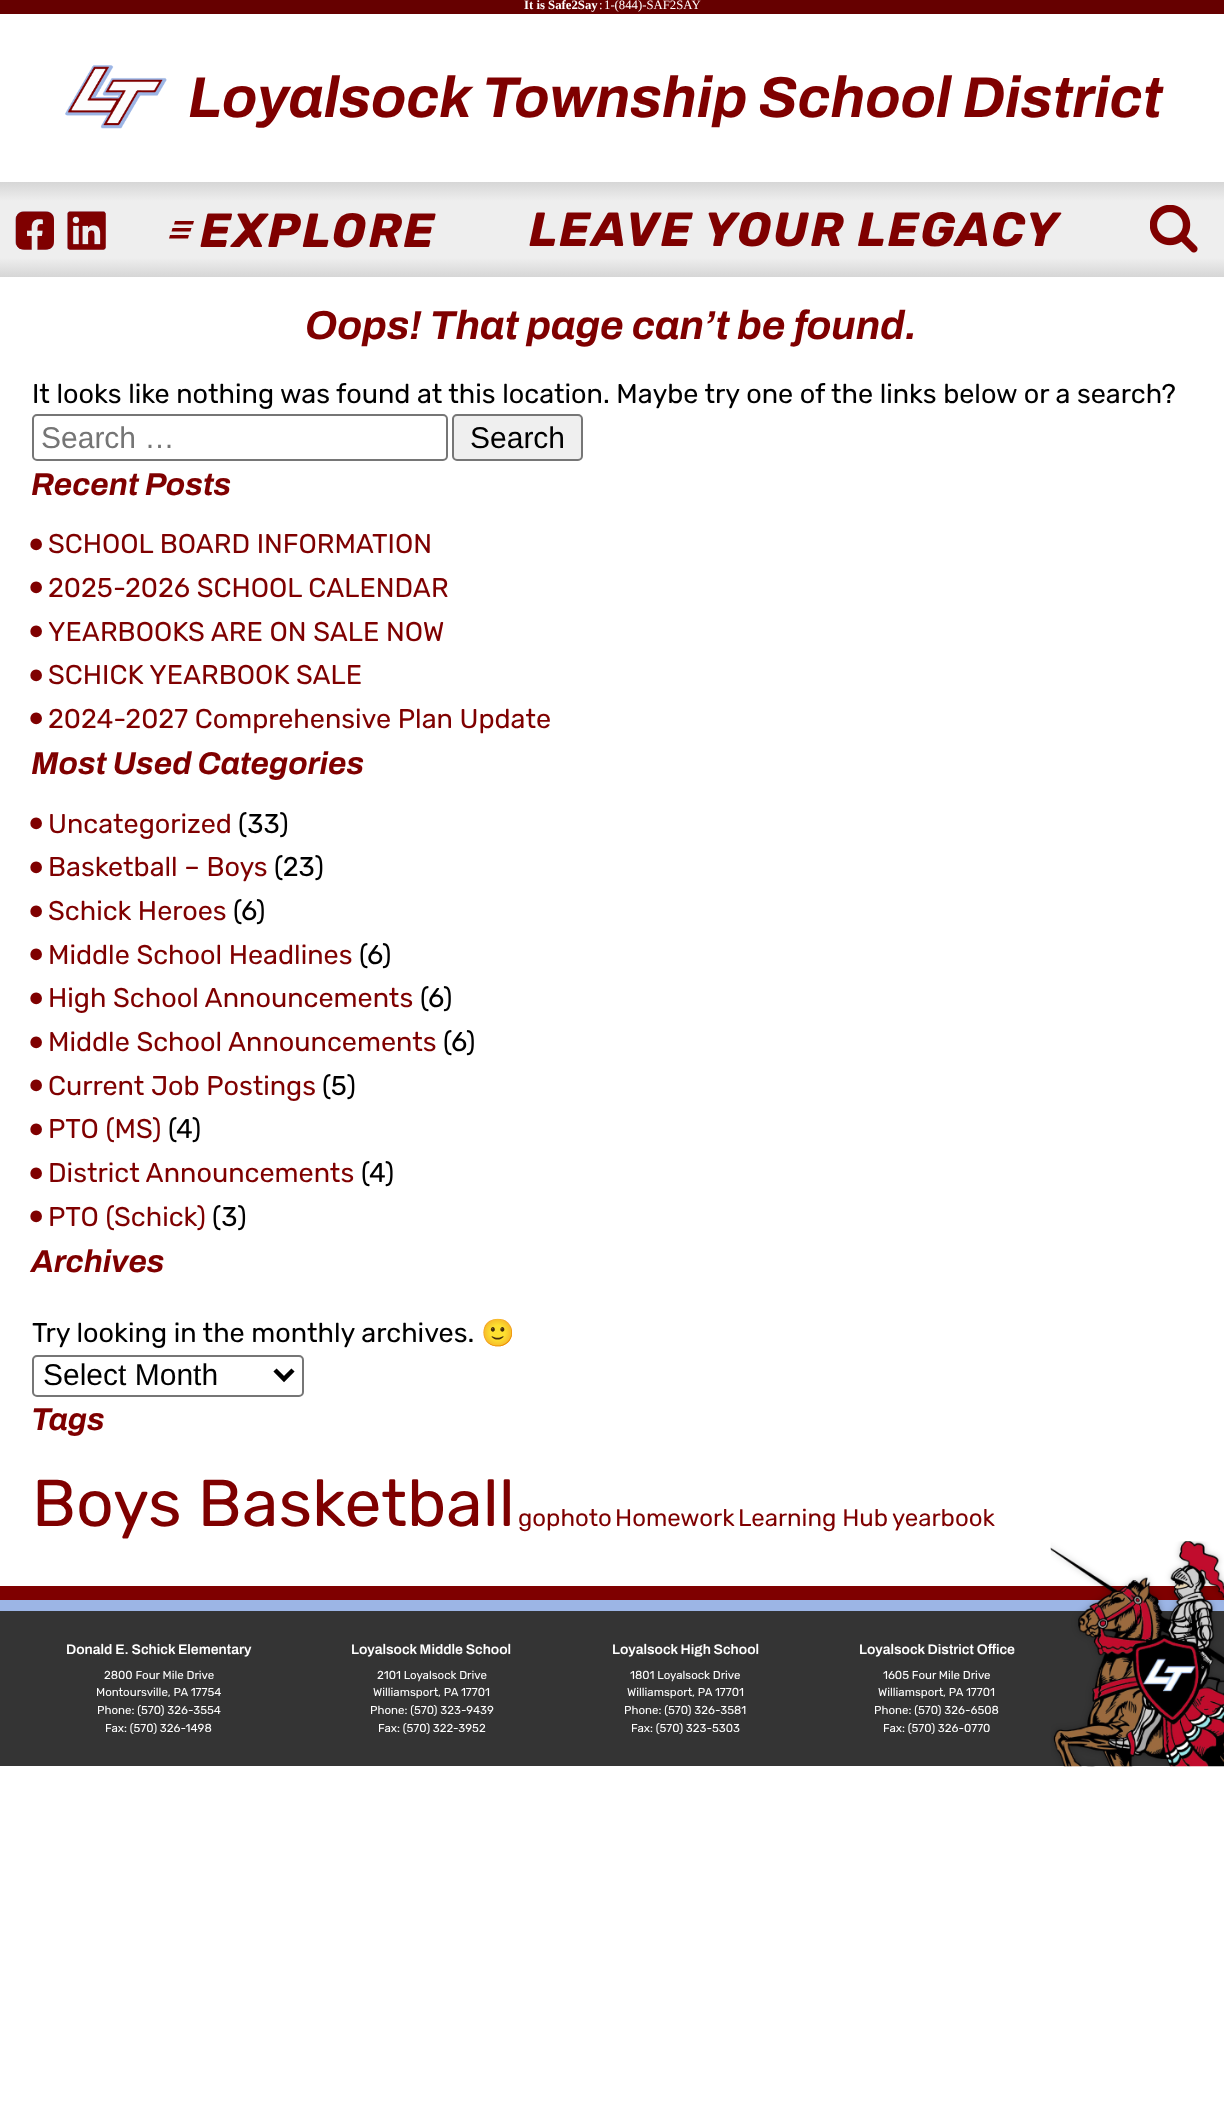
<!DOCTYPE html>
<meta charset="utf-8">
<style>body { margin: 0 } canvas { display: block }</style>
<canvas id="canvas" width="1224" height="2126"></canvas>
<img id="img1" src="img_01.png" hidden>
<img id="img2" src="img_02.png" hidden>
<img id="img3" src="img_03.png" hidden>
<img id="img4" src="img_04.png" hidden>
<img id="img5" src="img_05.png" hidden>
<script>
window.onload = function () {
	const canvas = document.getElementById("canvas");
	const ctx = canvas.getContext("2d");
	ctx.miterLimit = 4;
	ctx.fontKerning = "normal";
	function txt(s, x, y) {
		ctx.fillText(s, x, y);
	}
	function fill(x, y, w, h) {
		ctx.fillRect(x, y, w, h);
	}
	function img(id, x, y, w, h) {
		ctx.drawImage(document.getElementById(id), x, y, w, h);
	}
	let gradient;

	ctx.fillStyle = "#FFFFFF";
	fill(0, 0, 1224, 2126);
	ctx.fillStyle = "#660000";
	fill(0, 0, 1224, 14);
	img("img1", 65, 65, 102, 64);
	gradient = ctx.createLinearGradient(612, 182, 612, 277);
	gradient.addColorStop(0, "#D6D6D6");
	gradient.addColorStop(0.2, "#EEEEEE");
	gradient.addColorStop(0.8, "#EEEEEE");
	gradient.addColorStop(1, "#D6D6D6");
	ctx.fillStyle = gradient;
	fill(0, 182, 1224, 95);
	img("img2", 15, 211, 39, 39);
	img("img3", 67, 211, 39, 39);
	ctx.fillStyle = "#7F0000";
	ctx.beginPath();
	ctx.moveTo(175, 221);
	ctx.lineTo(194, 221);
	ctx.lineTo(193, 224.5);
	ctx.lineTo(174, 224.5);
	ctx.closePath();
	ctx.moveTo(172.5, 228);
	ctx.lineTo(191.5, 228);
	ctx.lineTo(190.5, 231.5);
	ctx.lineTo(171.5, 231.5);
	ctx.closePath();
	ctx.moveTo(170, 235);
	ctx.lineTo(189, 235);
	ctx.lineTo(188, 238.5);
	ctx.lineTo(169, 238.5);
	ctx.closePath();
	ctx.fill();
	img("img4", 1150, 205, 48, 48);
	ctx.beginPath();
	ctx.roundRect(33, 415, 414, 45, 4);
	ctx.strokeStyle = "#767676";
	ctx.lineWidth = 2;
	ctx.stroke();
	ctx.fillStyle = "#EFEFEF";
	ctx.beginPath();
	ctx.roundRect(453, 415, 129, 45, 4);
	ctx.fill();
	ctx.stroke();
	ctx.beginPath();
	ctx.roundRect(33, 1356, 270, 40, 4);
	ctx.stroke();
	ctx.beginPath();
	ctx.moveTo(275, 1370);
	ctx.lineTo(284, 1379);
	ctx.lineTo(293, 1370);
	ctx.strokeStyle = "#000000";
	ctx.lineWidth = 4.5;
	ctx.stroke();
	ctx.fillStyle = "#7F0000";
	fill(0, 1586, 1224, 14);
	ctx.fillStyle = "#343434";
	fill(0, 1611, 1224, 155);
	ctx.fillStyle = "#9CB5E5";
	fill(0, 1600, 1224, 11);
	img("img5", 1050, 1541, 174, 226);
	ctx.font = "bold 12.75px Liberation Serif";
	ctx.fillStyle = "#FFFFFF";
	txt("It is Safe2Say", 524, 9);
	ctx.font = "12.75px Liberation Serif";
	txt(":", 599, 9);
	txt("1-(844)-SAF2SAY", 604, 9);
	ctx.font = "italic bold 57.6px Archivo";
	ctx.fillStyle = "#7F0000";
	txt("Loyalsock Township School District", 188, 117);
	ctx.letterSpacing = "2px";
	ctx.font = "italic bold 48px Rubik";
	txt("EXPLORE", 200, 247);
	ctx.letterSpacing = "1.9px";
	txt("LEAVE YOUR LEGACY", 529, 246);
	ctx.letterSpacing = "0px";
	ctx.font = "italic bold 40.6px Archivo";
	txt("Oops! That page can’t be found.", 305, 339);
	ctx.font = "27px Rubik";
	ctx.fillStyle = "#000000";
	txt("It looks like nothing was found at this location. Maybe try one of the links below or a search?", 32, 403);
	ctx.font = "30px Liberation Sans";
	ctx.fillStyle = "#757575";
	txt("Search …", 41, 448);
	ctx.fillStyle = "#000000";
	txt("Search", 470, 448);
	ctx.font = "italic bold 31.6px Archivo";
	ctx.fillStyle = "#7F0000";
	txt("Recent Posts", 31, 495);
	ctx.font = "bold 27px Liberation Sans";
	txt("●", 28, 552);
	ctx.font = "27px Rubik";
	txt("SCHOOL BOARD INFORMATION", 48, 553);
	ctx.font = "bold 27px Liberation Sans";
	txt("●", 28, 595);
	ctx.font = "27px Rubik";
	txt("2025-2026 SCHOOL CALENDAR", 48, 597);
	ctx.font = "bold 27px Liberation Sans";
	txt("●", 28, 639);
	ctx.font = "27px Rubik";
	txt("YEARBOOKS ARE ON SALE NOW", 48, 641);
	ctx.font = "bold 27px Liberation Sans";
	txt("●", 28, 683);
	ctx.font = "27px Rubik";
	txt("SCHICK YEARBOOK SALE", 48, 684);
	ctx.font = "bold 27px Liberation Sans";
	txt("●", 28, 726);
	ctx.font = "27px Rubik";
	txt("2024-2027 Comprehensive Plan Update", 48, 728);
	ctx.font = "italic bold 31.6px Archivo";
	txt("Most Used Categories", 31, 774);
	ctx.font = "bold 27px Liberation Sans";
	txt("●", 28, 831);
	ctx.font = "27px Rubik";
	txt("Uncategorized", 48, 833);
	ctx.fillStyle = "#000000";
	txt("(33)", 238, 833);
	ctx.font = "bold 27px Liberation Sans";
	ctx.fillStyle = "#7F0000";
	txt("●", 28, 875);
	ctx.font = "27px Rubik";
	txt("Basketball – Boys", 48, 876);
	ctx.fillStyle = "#000000";
	txt("(23)", 274, 876);
	ctx.font = "bold 27px Liberation Sans";
	ctx.fillStyle = "#7F0000";
	txt("●", 28, 919);
	ctx.font = "27px Rubik";
	txt("Schick Heroes", 48, 920);
	ctx.fillStyle = "#000000";
	txt("(6)", 233, 920);
	ctx.font = "bold 27px Liberation Sans";
	ctx.fillStyle = "#7F0000";
	txt("●", 28, 962);
	ctx.font = "27px Rubik";
	txt("Middle School Headlines", 48, 964);
	ctx.fillStyle = "#000000";
	txt("(6)", 359, 964);
	ctx.font = "bold 27px Liberation Sans";
	ctx.fillStyle = "#7F0000";
	txt("●", 28, 1006);
	ctx.font = "27px Rubik";
	txt("High School Announcements", 48, 1007);
	ctx.fillStyle = "#000000";
	txt("(6)", 420, 1007);
	ctx.font = "bold 27px Liberation Sans";
	ctx.fillStyle = "#7F0000";
	txt("●", 28, 1050);
	ctx.font = "27px Rubik";
	txt("Middle School Announcements", 48, 1051);
	ctx.fillStyle = "#000000";
	txt("(6)", 443, 1051);
	ctx.font = "bold 27px Liberation Sans";
	ctx.fillStyle = "#7F0000";
	txt("●", 28, 1093);
	ctx.font = "27px Rubik";
	txt("Current Job Postings", 48, 1095);
	ctx.fillStyle = "#000000";
	txt("(5)", 322, 1095);
	ctx.font = "bold 27px Liberation Sans";
	ctx.fillStyle = "#7F0000";
	txt("●", 28, 1137);
	ctx.font = "27px Rubik";
	txt("PTO (MS)", 48, 1138);
	ctx.fillStyle = "#000000";
	txt("(4)", 168, 1138);
	ctx.font = "bold 27px Liberation Sans";
	ctx.fillStyle = "#7F0000";
	txt("●", 28, 1181);
	ctx.font = "27px Rubik";
	txt("District Announcements", 48, 1182);
	ctx.fillStyle = "#000000";
	txt("(4)", 361, 1182);
	ctx.font = "bold 27px Liberation Sans";
	ctx.fillStyle = "#7F0000";
	txt("●", 28, 1224);
	ctx.font = "27px Rubik";
	txt("PTO (Schick)", 48, 1226);
	ctx.fillStyle = "#000000";
	txt("(3)", 212, 1226);
	ctx.font = "italic bold 31.6px Archivo";
	ctx.fillStyle = "#7F0000";
	txt("Archives", 31, 1272);
	ctx.font = "27px Rubik";
	ctx.fillStyle = "#000000";
	txt("Try looking in the monthly archives.", 32, 1342);
	ctx.font = "27px Noto Color Emoji";
	txt("🙂", 481, 1342);
	ctx.font = "30px Liberation Sans";
	txt("Select Month", 43, 1385);
	ctx.font = "italic bold 31.6px Archivo";
	ctx.fillStyle = "#7F0000";
	txt("Tags", 31, 1430);
	ctx.font = "66px Rubik";
	txt("Boys Basketball", 32, 1526);
	ctx.font = "24px Rubik";
	txt("gophoto", 518, 1526);
	txt("Homework", 615, 1526);
	txt("Learning Hub", 738, 1526);
	txt("yearbook", 892, 1526);
	ctx.font = "600 14px Archivo";
	ctx.fillStyle = "#FFFFFF";
	txt("Donald E. Schick Elementary", 66, 1654);
	ctx.font = "11.5px Rubik";
	txt("2800 Four Mile Drive", 104, 1679);
	txt("Montoursville, PA 17754", 96, 1696);
	txt("Phone: (570) 326-3554", 97, 1714);
	txt("Fax: (570) 326-1498", 105, 1732);
	ctx.font = "600 14px Archivo";
	txt("Loyalsock Middle School", 351, 1654);
	ctx.font = "11.5px Rubik";
	txt("2101 Loyalsock Drive", 377, 1679);
	txt("Williamsport, PA 17701", 373, 1696);
	txt("Phone: (570) 323-9439", 370, 1714);
	txt("Fax: (570) 322-3952", 378, 1732);
	ctx.font = "600 14px Archivo";
	txt("Loyalsock High School", 612, 1654);
	ctx.font = "11.5px Rubik";
	txt("1801 Loyalsock Drive", 630, 1679);
	txt("Williamsport, PA 17701", 627, 1696);
	txt("Phone: (570) 326-3581", 624, 1714);
	txt("Fax: (570) 323-5303", 631, 1732);
	ctx.font = "600 14px Archivo";
	txt("Loyalsock District Office", 859, 1654);
	ctx.font = "11.5px Rubik";
	txt("1605 Four Mile Drive", 883, 1679);
	txt("Williamsport, PA 17701", 878, 1696);
	txt("Phone: (570) 326-6508", 874, 1714);
	txt("Fax: (570) 326-0770", 883, 1732);
};
</script>
